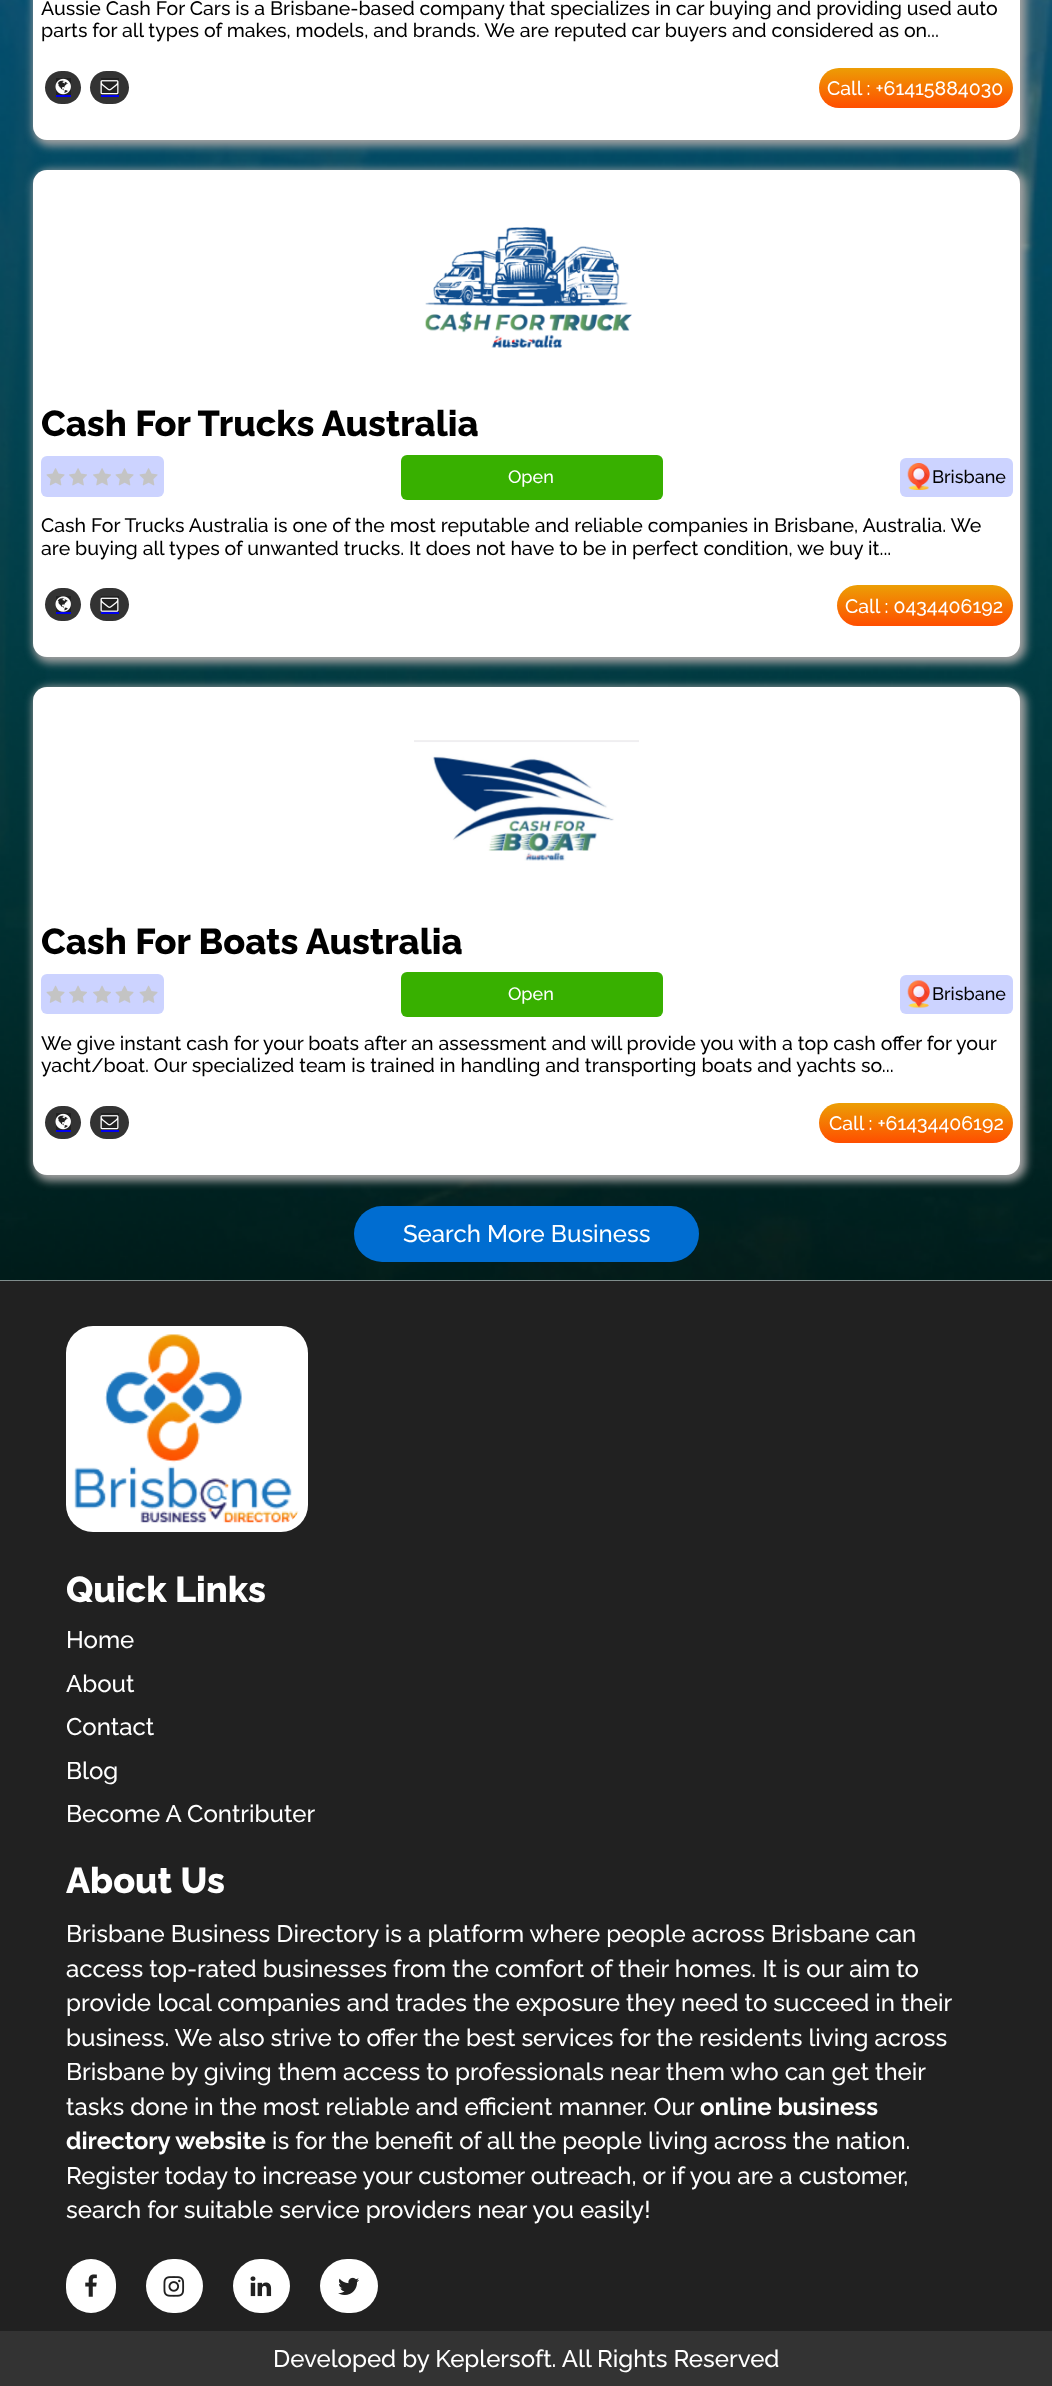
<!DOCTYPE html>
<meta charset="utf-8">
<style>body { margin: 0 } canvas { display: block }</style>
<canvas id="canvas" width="1052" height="2386"></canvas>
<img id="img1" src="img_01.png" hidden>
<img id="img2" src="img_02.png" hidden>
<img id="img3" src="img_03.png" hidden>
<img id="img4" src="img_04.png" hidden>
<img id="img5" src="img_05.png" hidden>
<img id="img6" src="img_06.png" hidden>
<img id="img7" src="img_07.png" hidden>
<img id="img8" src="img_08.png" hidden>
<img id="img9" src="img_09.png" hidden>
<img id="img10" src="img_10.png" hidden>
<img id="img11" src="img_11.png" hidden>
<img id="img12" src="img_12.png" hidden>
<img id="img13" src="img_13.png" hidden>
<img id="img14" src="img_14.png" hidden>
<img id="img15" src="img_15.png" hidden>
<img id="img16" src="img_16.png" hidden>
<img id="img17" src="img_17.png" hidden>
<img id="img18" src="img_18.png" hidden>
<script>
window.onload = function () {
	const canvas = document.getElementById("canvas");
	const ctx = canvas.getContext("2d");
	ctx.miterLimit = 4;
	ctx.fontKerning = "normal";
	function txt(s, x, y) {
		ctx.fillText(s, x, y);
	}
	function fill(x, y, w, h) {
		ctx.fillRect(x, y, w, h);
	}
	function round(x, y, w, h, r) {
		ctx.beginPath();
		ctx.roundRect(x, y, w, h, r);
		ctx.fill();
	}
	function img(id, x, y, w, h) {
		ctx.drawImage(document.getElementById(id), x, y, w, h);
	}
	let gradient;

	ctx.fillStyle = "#FFFFFF";
	fill(0, 0, 1052, 2386);
	img("img1", 0, 0, 1052, 1281);
	ctx.fillStyle = "#A1A1A1";
	ctx.filter = "blur(4.5px)";
	ctx.beginPath();
	ctx.roundRect(33, -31, 993, 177, 17);
	ctx.fill();
	ctx.filter = "none";
	ctx.fillStyle = "#FFFFFF";
	round(33, -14, 987, 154, 14);
	ctx.fillStyle = "#333333";
	round(45, 71, 36, 33, 16.5);
	ctx.fillStyle = "#212121";
	fill(56, 78, 15, 17);
	img("img2", 55, 78, 16, 17);
	ctx.fillStyle = "#0000EE";
	fill(56, 95, 15, 2);
	ctx.fillStyle = "#333333";
	round(90, 71, 39, 33, 16.5);
	ctx.fillStyle = "#212121";
	fill(101, 78, 18, 17);
	img("img3", 100, 80, 19, 15);
	ctx.fillStyle = "#0000EE";
	fill(101, 95, 18, 2);
	gradient = ctx.createLinearGradient(916, 67, 916, 108);
	gradient.addColorStop(0, "#EC9F05");
	gradient.addColorStop(1, "#FF4E00");
	ctx.fillStyle = gradient;
	round(819, 68, 194, 40, 20);
	ctx.fillStyle = "#A1A1A1";
	ctx.filter = "blur(4.5px)";
	ctx.beginPath();
	ctx.roundRect(33, 170, 993, 493, 17);
	ctx.fill();
	ctx.filter = "none";
	ctx.fillStyle = "#FFFFFF";
	round(33, 170, 987, 487, 14);
	img("img4", 425, 227, 207, 121);
	ctx.fillStyle = "#CCD3FF";
	round(41, 456, 123, 41, 6);
	img("img5", 46, 468, 19, 18);
	img("img6", 69, 468, 18, 18);
	img("img6", 93, 468, 18, 18);
	img("img5", 115, 468, 19, 18);
	img("img5", 139, 468, 19, 18);
	ctx.fillStyle = "#38B000";
	round(401, 455, 262, 45, 6);
	ctx.fillStyle = "#CCD3FF";
	round(900, 458, 113, 39, 6);
	img("img7", 907, 463, 23, 27);
	ctx.fillStyle = "#333333";
	round(45, 588, 36, 33, 16.5);
	ctx.fillStyle = "#212121";
	fill(56, 596, 15, 16);
	img("img8", 55, 596, 16, 16);
	ctx.fillStyle = "#0000EE";
	fill(56, 612, 15, 2);
	ctx.fillStyle = "#333333";
	round(90, 588, 39, 33, 16.5);
	ctx.fillStyle = "#212121";
	fill(101, 596, 18, 16);
	img("img9", 100, 597, 19, 15);
	ctx.fillStyle = "#0000EE";
	fill(101, 612, 18, 2);
	gradient = ctx.createLinearGradient(925, 585, 925, 626);
	gradient.addColorStop(0, "#EC9F05");
	gradient.addColorStop(1, "#FF4E00");
	ctx.fillStyle = gradient;
	round(837, 585, 176, 41, 20.5);
	ctx.fillStyle = "#A1A1A1";
	ctx.filter = "blur(4.5px)";
	ctx.beginPath();
	ctx.roundRect(33, 687, 993, 494, 17);
	ctx.fill();
	ctx.filter = "none";
	ctx.fillStyle = "#FFFFFF";
	round(33, 687, 987, 488, 14);
	img("img10", 414, 740, 225, 121);
	ctx.fillStyle = "#CCD3FF";
	round(41, 974, 123, 40, 6);
	img("img11", 46, 985, 19, 18);
	img("img12", 69, 985, 18, 18);
	img("img12", 93, 985, 18, 18);
	img("img11", 115, 985, 19, 18);
	img("img11", 139, 985, 19, 18);
	ctx.fillStyle = "#38B000";
	round(401, 972, 262, 45, 6);
	ctx.fillStyle = "#CCD3FF";
	round(900, 975, 113, 39, 6);
	img("img13", 907, 980, 23, 28);
	ctx.fillStyle = "#333333";
	round(45, 1106, 36, 33, 16.5);
	ctx.fillStyle = "#212121";
	fill(56, 1113, 15, 17);
	img("img2", 55, 1113, 16, 17);
	ctx.fillStyle = "#0000EE";
	fill(56, 1130, 15, 2);
	ctx.fillStyle = "#333333";
	round(90, 1106, 39, 33, 16.5);
	ctx.fillStyle = "#212121";
	fill(101, 1113, 18, 17);
	img("img3", 100, 1115, 19, 15);
	ctx.fillStyle = "#0000EE";
	fill(101, 1130, 18, 2);
	gradient = ctx.createLinearGradient(916, 1103, 916, 1143);
	gradient.addColorStop(0, "#EC9F05");
	gradient.addColorStop(1, "#FF4E00");
	ctx.fillStyle = gradient;
	round(819, 1103, 194, 40, 20);
	ctx.fillStyle = "#006DD1";
	round(354, 1206, 345, 56, 28);
	ctx.fillStyle = "#212121";
	fill(0, 1281, 1052, 1050);
	ctx.fillStyle = "#FFFFFF";
	round(66, 1326, 242, 206, 27);
	img("img14", 74, 1334, 225, 189);
	round(66, 2259, 50, 54, 25);
	img("img15", 85, 2274, 12, 23);
	round(146, 2259, 57, 54, 27);
	img("img16", 163, 2276, 22, 21);
	round(233, 2259, 57, 54, 27);
	img("img17", 250, 2276, 22, 21);
	round(320, 2259, 58, 54, 27);
	img("img18", 338, 2277, 21, 18);
	ctx.fillStyle = "#333333";
	fill(0, 2331, 1052, 55);
	ctx.font = "500 19.5px Raleway";
	ctx.fillStyle = "#000000";
	txt("Aussie Cash For Cars is a Brisbane-based company that specializes in car buying and providing used auto", 41, 15);
	txt("parts for all types of makes, models, and brands. We are reputed car buyers and considered as on...", 41, 37);
	ctx.fillStyle = "#FFFFFF";
	txt("Call : +61415884030", 827, 95);
	ctx.font = "800 36px Raleway";
	ctx.fillStyle = "#000000";
	txt("Cash For Trucks Australia", 41, 436);
	ctx.font = "500 18px Raleway";
	ctx.fillStyle = "#FFFFFF";
	txt("Open", 508, 483);
	ctx.fillStyle = "#000000";
	txt("Brisbane", 932, 483);
	ctx.font = "500 19.5px Raleway";
	txt("Cash For Trucks Australia is one of the most reputable and reliable companies in Brisbane, Australia. We", 41, 532);
	txt("are buying all types of unwanted trucks. It does not have to be in perfect condition, we buy it...", 41, 555);
	ctx.fillStyle = "#FFFFFF";
	txt("Call : 0434406192", 845, 613);
	ctx.font = "800 36px Raleway";
	ctx.fillStyle = "#000000";
	txt("Cash For Boats Australia", 41, 954);
	ctx.font = "500 18px Raleway";
	ctx.fillStyle = "#FFFFFF";
	txt("Open", 508, 1000);
	ctx.fillStyle = "#000000";
	txt("Brisbane", 932, 1000);
	ctx.font = "500 19.5px Raleway";
	txt("We give instant cash for your boats after an assessment and will provide you with a top cash offer for your", 41, 1050);
	txt("yacht/boat. Our specialized team is trained in handling and transporting boats and yachts so...", 41, 1072);
	ctx.fillStyle = "#FFFFFF";
	txt("Call : +61434406192", 829, 1130);
	ctx.font = "500 24px Raleway";
	txt("Search More Business", 403, 1242);
	ctx.font = "800 36px Raleway";
	txt("Quick Links", 66, 1602);
	ctx.font = "500 24px Raleway";
	txt("Home", 66, 1648);
	txt("About", 66, 1692);
	txt("Contact", 66, 1735);
	txt("Blog", 66, 1779);
	txt("Become A Contributer", 66, 1822);
	ctx.font = "800 36px Raleway";
	txt("About Us", 66, 1893);
	ctx.font = "500 24px Raleway";
	txt("Brisbane Business Directory is a platform where people across Brisbane can", 66, 1942);
	txt("access top-rated businesses from the comfort of their homes. It is our aim to", 66, 1977);
	txt("provide local companies and trades the exposure they need to succeed in their", 66, 2011);
	txt("business. We also strive to offer the best services for the residents living across", 66, 2046);
	txt("Brisbane by giving them access to professionals near them who can get their", 66, 2080);
	txt("tasks done in the most reliable and efficient manner. Our", 66, 2115);
	ctx.font = "bold 24px Raleway";
	txt("online business", 700, 2115);
	txt("directory website", 66, 2149);
	ctx.font = "500 24px Raleway";
	txt("is for the benefit of all the people living across the nation.", 272, 2149);
	txt("Register today to increase your customer outreach, or if you are a customer,", 66, 2184);
	txt("search for suitable service providers near you easily!", 66, 2218);
	txt("Developed by Keplersoft. All Rights Reserved", 273, 2367);
};
</script>
